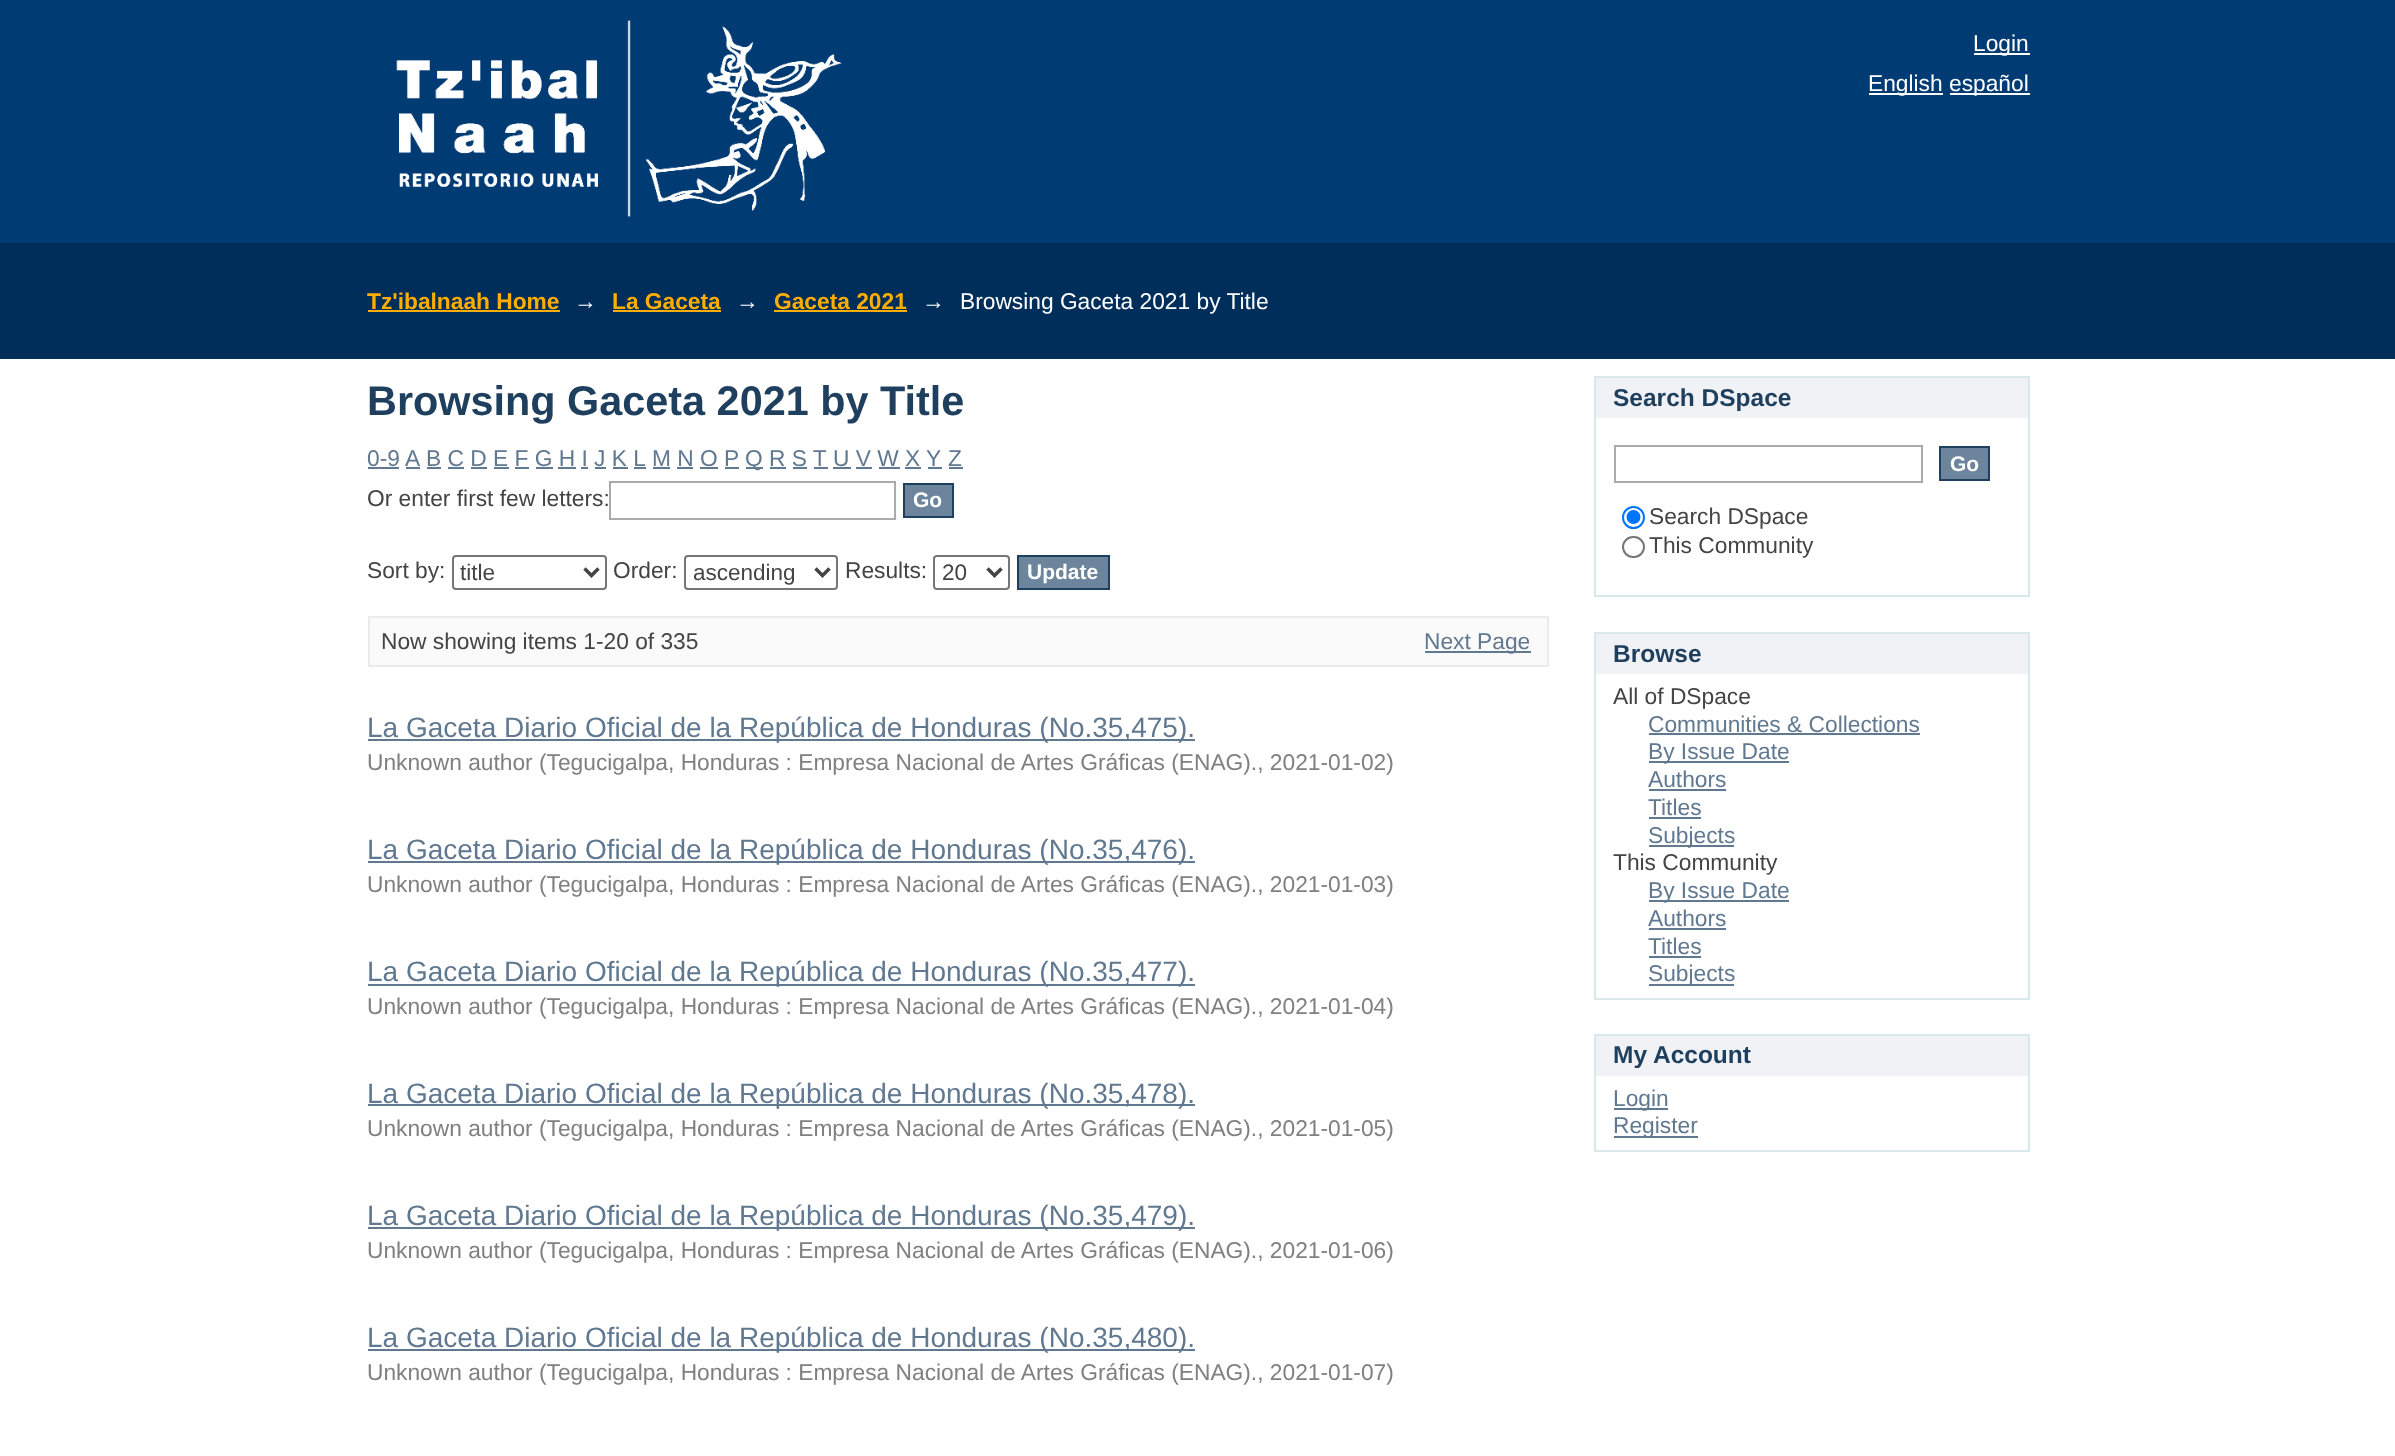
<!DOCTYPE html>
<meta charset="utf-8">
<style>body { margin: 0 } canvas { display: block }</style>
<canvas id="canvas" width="2395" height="1456"></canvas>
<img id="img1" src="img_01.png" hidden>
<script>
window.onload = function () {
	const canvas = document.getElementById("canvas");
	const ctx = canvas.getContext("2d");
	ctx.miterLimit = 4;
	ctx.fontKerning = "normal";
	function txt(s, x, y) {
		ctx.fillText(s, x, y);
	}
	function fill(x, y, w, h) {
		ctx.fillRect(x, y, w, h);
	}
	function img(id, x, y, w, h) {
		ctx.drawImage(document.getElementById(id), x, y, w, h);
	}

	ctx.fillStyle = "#FFFFFF";
	fill(0, 0, 2395, 1456);
	ctx.fillStyle = "#003B74";
	fill(0, 0, 2395, 243);
	img("img1", 396, 20, 446, 197);
	ctx.fillStyle = "#FFFFFF";
	fill(1974, 53, 56, 2);
	fill(1869, 93, 74, 2);
	fill(1950, 93, 80, 2);
	ctx.fillStyle = "#002E5B";
	fill(0, 243, 2395, 116);
	ctx.fillStyle = "#FFAE00";
	fill(368, 310, 192, 2);
	fill(613, 310, 108, 2);
	fill(774, 310, 133, 2);
	ctx.fillStyle = "#607890";
	fill(368, 467, 31, 2);
	fill(427, 467, 14, 2);
	fill(653, 467, 17, 2);
	fill(746, 467, 17, 2);
	fill(833, 467, 18, 2);
	fill(949, 467, 14, 2);
	fill(406, 467, 14, 2);
	fill(448, 467, 16, 2);
	fill(471, 467, 16, 2);
	fill(494, 467, 15, 2);
	fill(515, 467, 14, 2);
	fill(536, 467, 17, 2);
	fill(558, 467, 18, 2);
	fill(581, 467, 7, 2);
	fill(595, 467, 11, 2);
	fill(613, 467, 15, 2);
	fill(634, 467, 12, 2);
	fill(677, 467, 16, 2);
	fill(700, 467, 18, 2);
	fill(725, 467, 14, 2);
	fill(770, 467, 16, 2);
	fill(793, 467, 14, 2);
	fill(814, 467, 14, 2);
	fill(856, 467, 16, 2);
	fill(879, 467, 21, 2);
	fill(905, 467, 16, 2);
	fill(928, 467, 14, 2);
	ctx.strokeStyle = "#AAAAAA";
	ctx.lineWidth = 2;
	ctx.strokeRect(610, 482, 285, 37);
	ctx.fillStyle = "#6D859C";
	ctx.beginPath();
	ctx.rect(904, 484, 49, 33);
	ctx.fill();
	ctx.strokeStyle = "#1F3F5E";
	ctx.stroke();
	ctx.beginPath();
	ctx.roundRect(453, 556, 153, 33, 3);
	ctx.strokeStyle = "#767676";
	ctx.stroke();
	ctx.beginPath();
	ctx.moveTo(584.5, 568.5);
	ctx.lineTo(591.5, 575.5);
	ctx.lineTo(598.5, 568.5);
	ctx.strokeStyle = "#444444";
	ctx.lineWidth = 3.5;
	ctx.stroke();
	ctx.beginPath();
	ctx.roundRect(685, 556, 152, 33, 3);
	ctx.strokeStyle = "#767676";
	ctx.lineWidth = 2;
	ctx.stroke();
	ctx.beginPath();
	ctx.moveTo(815.5, 568.5);
	ctx.lineTo(822.5, 575.5);
	ctx.lineTo(829.5, 568.5);
	ctx.strokeStyle = "#444444";
	ctx.lineWidth = 3.5;
	ctx.stroke();
	ctx.beginPath();
	ctx.roundRect(934, 556, 75, 33, 3);
	ctx.strokeStyle = "#767676";
	ctx.lineWidth = 2;
	ctx.stroke();
	ctx.beginPath();
	ctx.moveTo(987.5, 568.5);
	ctx.lineTo(994.5, 575.5);
	ctx.lineTo(1001.5, 568.5);
	ctx.strokeStyle = "#444444";
	ctx.lineWidth = 3.5;
	ctx.stroke();
	ctx.beginPath();
	ctx.rect(1018, 556, 91, 33);
	ctx.fill();
	ctx.strokeStyle = "#1F3F5E";
	ctx.lineWidth = 2;
	ctx.stroke();
	ctx.fillStyle = "#FAFAFA";
	ctx.beginPath();
	ctx.rect(369, 617, 1179, 49);
	ctx.fill();
	ctx.strokeStyle = "#EBEBEB";
	ctx.stroke();
	ctx.fillStyle = "#607890";
	fill(1425, 651, 106, 2);
	fill(368, 739, 827, 2);
	fill(368, 861, 827, 2);
	fill(368, 984, 827, 2);
	fill(368, 1104, 827, 2);
	fill(368, 1227, 827, 2);
	fill(368, 1349, 827, 2);
	ctx.fillStyle = "#F0F2F5";
	fill(1596, 378, 432, 40);
	ctx.fillStyle = "#D8E8EB";
	fill(1594, 376, 436, 2);
	fill(2028, 376, 2, 221);
	fill(1594, 376, 2, 42);
	fill(1594, 595, 436, 2);
	fill(1594, 418, 2, 179);
	ctx.strokeStyle = "#AAAAAA";
	ctx.strokeRect(1615, 446, 307, 36);
	ctx.fillStyle = "#6D859C";
	ctx.beginPath();
	ctx.rect(1940, 447, 49, 33);
	ctx.fill();
	ctx.strokeStyle = "#1F3F5E";
	ctx.stroke();
	ctx.beginPath();
	ctx.arc(1633.5, 517.5, 10.5, 0, Math.PI * 2);
	ctx.strokeStyle = "#0075FF";
	ctx.stroke();
	ctx.fillStyle = "#0075FF";
	ctx.beginPath();
	ctx.arc(1633.5, 517, 7, 0, Math.PI * 2);
	ctx.fill();
	ctx.beginPath();
	ctx.roundRect(1623, 537, 21, 20, 10);
	ctx.strokeStyle = "#767676";
	ctx.stroke();
	ctx.fillStyle = "#F0F2F5";
	fill(1596, 634, 432, 40);
	ctx.fillStyle = "#D8E8EB";
	fill(1594, 632, 436, 2);
	fill(2028, 632, 2, 367);
	fill(1594, 632, 2, 42);
	fill(1594, 998, 436, 2);
	fill(1594, 674, 2, 325);
	ctx.fillStyle = "#607890";
	fill(1649, 733, 271, 2);
	fill(1649, 761, 140, 2);
	fill(1649, 789, 77, 2);
	fill(1649, 817, 52, 2);
	fill(1649, 845, 85, 2);
	fill(1649, 900, 140, 2);
	fill(1649, 928, 77, 2);
	fill(1649, 956, 52, 2);
	fill(1649, 984, 85, 2);
	ctx.fillStyle = "#F0F2F5";
	fill(1596, 1036, 432, 40);
	ctx.fillStyle = "#D8E8EB";
	fill(1594, 1034, 436, 2);
	fill(2028, 1034, 2, 118);
	fill(1594, 1034, 2, 42);
	fill(1594, 1150, 436, 2);
	fill(1594, 1076, 2, 76);
	ctx.fillStyle = "#607890";
	fill(1614, 1108, 54, 2);
	fill(1614, 1136, 84, 2);
	ctx.font = "22.75px Liberation Sans";
	ctx.fillStyle = "#FFFFFF";
	txt("Login", 1973, 51);
	txt("English", 1868, 91);
	txt("español", 1949, 91);
	ctx.font = "bold 22.75px Liberation Sans";
	ctx.fillStyle = "#FFAE00";
	txt("Tz'ibalnaah Home", 367, 309);
	ctx.font = "22.75px Liberation Sans";
	ctx.fillStyle = "#FFFFFF";
	txt("→", 574, 309);
	ctx.font = "bold 22.75px Liberation Sans";
	ctx.fillStyle = "#FFAE00";
	txt("La Gaceta", 612, 309);
	ctx.font = "22.75px Liberation Sans";
	ctx.fillStyle = "#FFFFFF";
	txt("→", 736, 309);
	ctx.font = "bold 22.75px Liberation Sans";
	ctx.fillStyle = "#FFAE00";
	txt("Gaceta 2021", 774, 309);
	ctx.font = "22.75px Liberation Sans";
	ctx.fillStyle = "#FFFFFF";
	txt("→", 922, 309);
	txt("Browsing Gaceta 2021 by Title", 960, 309);
	ctx.font = "bold 41.4px Liberation Sans";
	ctx.fillStyle = "#1F3F5E";
	txt("Browsing Gaceta 2021 by Title", 367, 415);
	ctx.font = "22.75px Liberation Sans";
	ctx.fillStyle = "#607890";
	txt("0-9 A", 367, 466);
	txt("B C D E F G H I J K L", 426, 466);
	txt("M N O P", 652, 466);
	txt("Q R S T", 745, 466);
	txt("U V W X Y", 833, 466);
	txt("Z", 948, 466);
	ctx.fillStyle = "#444444";
	txt("Or enter first few letters:", 367, 506);
	ctx.font = "bold 21px Liberation Sans";
	ctx.fillStyle = "#FFFFFF";
	txt("Go", 913, 507);
	ctx.font = "22.75px Liberation Sans";
	ctx.fillStyle = "#444444";
	txt("Sort by:", 367, 578);
	ctx.font = "22.5px Liberation Sans";
	txt("title", 460, 580);
	ctx.font = "22.75px Liberation Sans";
	txt("Order:", 613, 578);
	ctx.font = "22.5px Liberation Sans";
	txt("ascending", 693, 580);
	ctx.font = "22.75px Liberation Sans";
	txt("Results:", 845, 578);
	ctx.font = "22.5px Liberation Sans";
	txt("20", 942, 580);
	ctx.font = "bold 21px Liberation Sans";
	ctx.fillStyle = "#FFFFFF";
	txt("Update", 1027, 579);
	ctx.font = "22.75px Liberation Sans";
	ctx.fillStyle = "#444444";
	txt("Now showing items 1-20 of 335", 381, 649);
	ctx.fillStyle = "#607890";
	txt("Next Page", 1424, 649);
	ctx.font = "28px Liberation Sans";
	txt("La Gaceta Diario Oficial de la República de Honduras (No.35,475).", 367, 737);
	ctx.font = "22.75px Liberation Sans";
	ctx.fillStyle = "#808080";
	txt("Unknown author (Tegucigalpa, Honduras : Empresa Nacional de Artes Gráficas (ENAG)., 2021-01-02)", 367, 770);
	ctx.font = "28px Liberation Sans";
	ctx.fillStyle = "#607890";
	txt("La Gaceta Diario Oficial de la República de Honduras (No.35,476).", 367, 859);
	ctx.font = "22.75px Liberation Sans";
	ctx.fillStyle = "#808080";
	txt("Unknown author (Tegucigalpa, Honduras : Empresa Nacional de Artes Gráficas (ENAG)., 2021-01-03)", 367, 892);
	ctx.font = "28px Liberation Sans";
	ctx.fillStyle = "#607890";
	txt("La Gaceta Diario Oficial de la República de Honduras (No.35,477).", 367, 981);
	ctx.font = "22.75px Liberation Sans";
	ctx.fillStyle = "#808080";
	txt("Unknown author (Tegucigalpa, Honduras : Empresa Nacional de Artes Gráficas (ENAG)., 2021-01-04)", 367, 1014);
	ctx.font = "28px Liberation Sans";
	ctx.fillStyle = "#607890";
	txt("La Gaceta Diario Oficial de la República de Honduras (No.35,478).", 367, 1103);
	ctx.font = "22.75px Liberation Sans";
	ctx.fillStyle = "#808080";
	txt("Unknown author (Tegucigalpa, Honduras : Empresa Nacional de Artes Gráficas (ENAG)., 2021-01-05)", 367, 1136);
	ctx.font = "28px Liberation Sans";
	ctx.fillStyle = "#607890";
	txt("La Gaceta Diario Oficial de la República de Honduras (No.35,479).", 367, 1225);
	ctx.font = "22.75px Liberation Sans";
	ctx.fillStyle = "#808080";
	txt("Unknown author (Tegucigalpa, Honduras : Empresa Nacional de Artes Gráficas (ENAG)., 2021-01-06)", 367, 1258);
	ctx.font = "28px Liberation Sans";
	ctx.fillStyle = "#607890";
	txt("La Gaceta Diario Oficial de la República de Honduras (No.35,480).", 367, 1347);
	ctx.font = "22.75px Liberation Sans";
	ctx.fillStyle = "#808080";
	txt("Unknown author (Tegucigalpa, Honduras : Empresa Nacional de Artes Gráficas (ENAG)., 2021-01-07)", 367, 1380);
	ctx.font = "bold 24.5px Liberation Sans";
	ctx.fillStyle = "#1F3F5E";
	txt("Search DSpace", 1613, 406);
	ctx.font = "bold 21px Liberation Sans";
	ctx.fillStyle = "#FFFFFF";
	txt("Go", 1950, 471);
	ctx.font = "22.75px Liberation Sans";
	ctx.fillStyle = "#444444";
	txt("Search DSpace", 1649, 524);
	txt("This Community", 1649, 553);
	ctx.font = "bold 24.5px Liberation Sans";
	ctx.fillStyle = "#1F3F5E";
	txt("Browse", 1613, 662);
	ctx.font = "22.75px Liberation Sans";
	ctx.fillStyle = "#444444";
	txt("All of DSpace", 1613, 704);
	ctx.fillStyle = "#607890";
	txt("Communities & Collections", 1648, 732);
	txt("By Issue Date", 1648, 759);
	txt("Authors", 1648, 787);
	txt("Titles", 1648, 815);
	txt("Subjects", 1648, 843);
	ctx.fillStyle = "#444444";
	txt("This Community", 1613, 870);
	ctx.fillStyle = "#607890";
	txt("By Issue Date", 1648, 898);
	txt("Authors", 1648, 926);
	txt("Titles", 1648, 954);
	txt("Subjects", 1648, 981);
	ctx.font = "bold 24.5px Liberation Sans";
	ctx.fillStyle = "#1F3F5E";
	txt("My Account", 1613, 1063);
	ctx.font = "22.75px Liberation Sans";
	ctx.fillStyle = "#607890";
	txt("Login", 1613, 1106);
	txt("Register", 1613, 1133);
};
</script>
